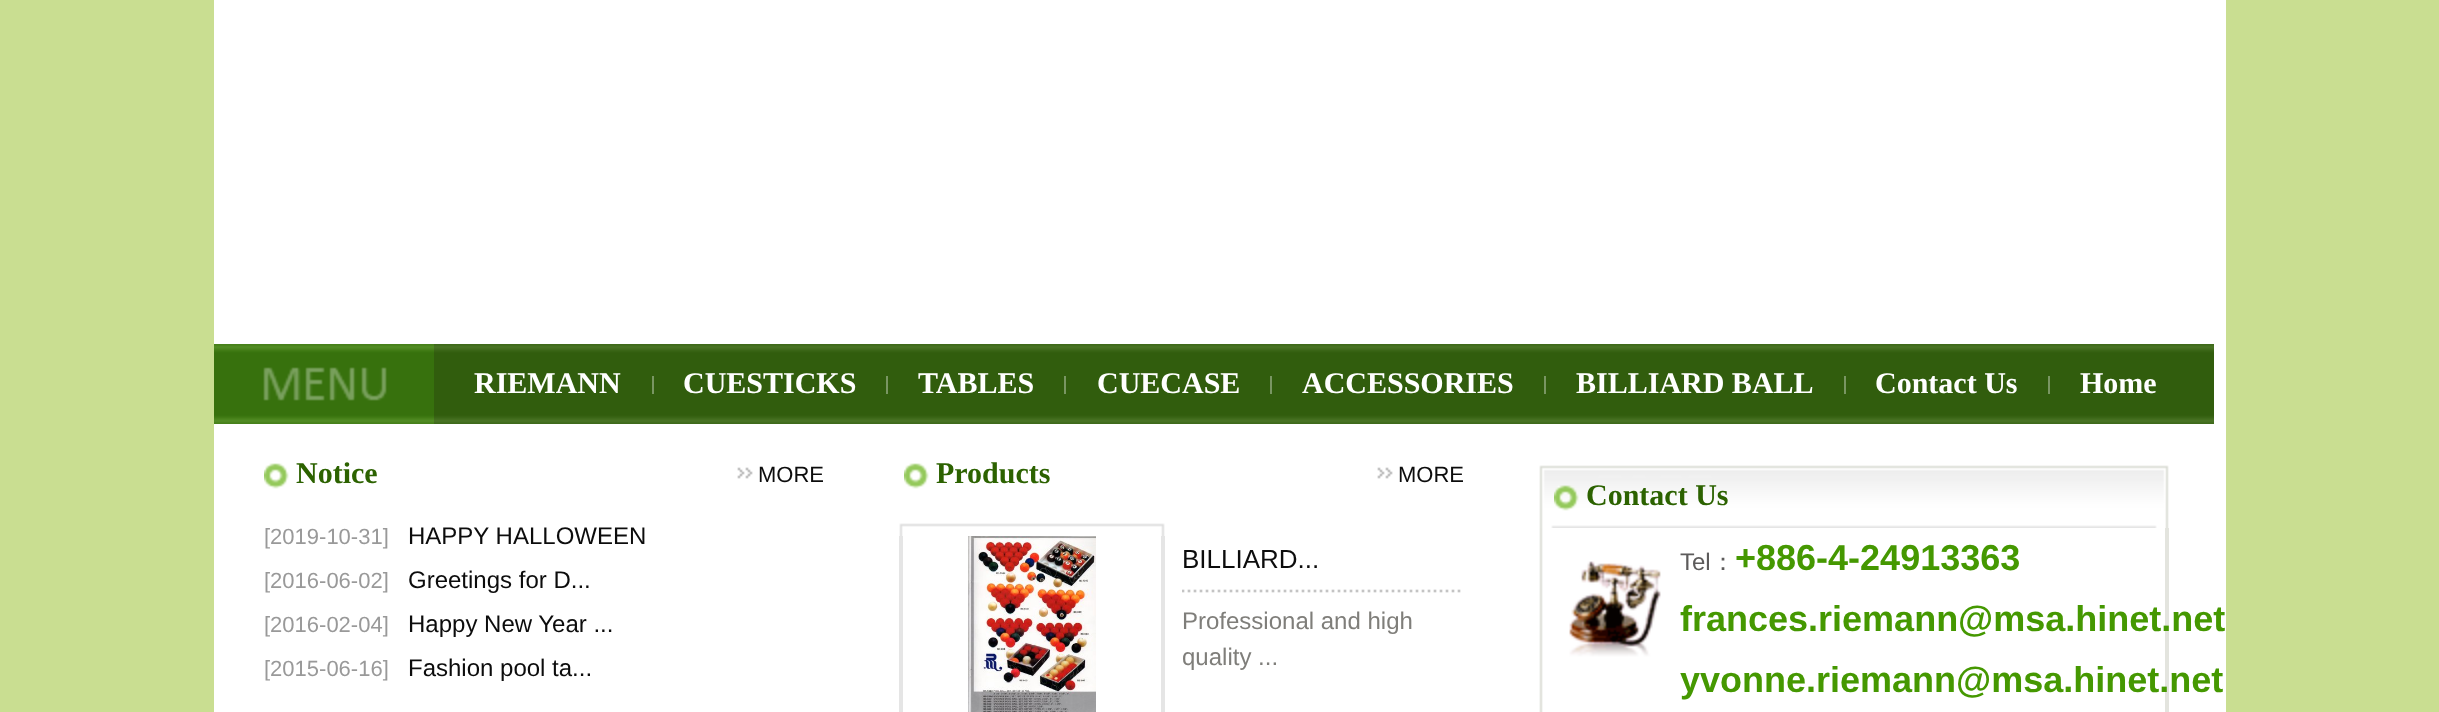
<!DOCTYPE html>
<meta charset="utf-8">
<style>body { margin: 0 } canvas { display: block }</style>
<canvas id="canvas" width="2439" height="712"></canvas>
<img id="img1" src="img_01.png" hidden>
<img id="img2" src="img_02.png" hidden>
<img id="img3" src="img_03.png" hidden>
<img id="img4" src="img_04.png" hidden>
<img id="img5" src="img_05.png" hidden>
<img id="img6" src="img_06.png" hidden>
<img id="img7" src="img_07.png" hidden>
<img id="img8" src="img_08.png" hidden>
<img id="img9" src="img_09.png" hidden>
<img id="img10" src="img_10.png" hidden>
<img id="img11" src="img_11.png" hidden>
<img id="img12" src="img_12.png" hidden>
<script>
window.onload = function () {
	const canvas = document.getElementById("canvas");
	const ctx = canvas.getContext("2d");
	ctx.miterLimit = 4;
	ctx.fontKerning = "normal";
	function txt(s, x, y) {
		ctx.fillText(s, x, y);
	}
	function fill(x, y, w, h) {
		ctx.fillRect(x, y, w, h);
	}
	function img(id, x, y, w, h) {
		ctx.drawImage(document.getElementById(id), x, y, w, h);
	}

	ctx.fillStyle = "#C9DE91";
	fill(0, 0, 2439, 712);
	ctx.fillStyle = "#FFFFFF";
	fill(214, 0, 2012, 712);
	img("img1", 214, 344, 220, 80);
	img("img2", 434, 344, 40, 80);
	img("img3", 474, 344, 1710, 80);
	ctx.fillStyle = "#799662";
	fill(652, 376, 2, 18);
	fill(886, 376, 2, 18);
	fill(1064, 376, 2, 18);
	fill(1270, 376, 2, 18);
	fill(1544, 376, 2, 18);
	fill(1844, 376, 2, 18);
	fill(2048, 376, 2, 18);
	img("img4", 2184, 344, 30, 80);
	img("img5", 264, 463, 25, 26);
	img("img6", 737, 467, 16, 12);
	img("img7", 899, 523, 266, 13);
	img("img5", 904, 463, 25, 26);
	img("img6", 1377, 467, 16, 12);
	ctx.fillStyle = "#E5E5E5";
	fill(899, 536, 4, 176);
	img("img8", 968, 536, 128, 176);
	fill(1161, 536, 4, 176);
	img("img9", 1182, 589, 279, 4);
	img("img10", 1539, 465, 630, 63);
	img("img11", 1554, 485, 25, 26);
	img("img12", 1539, 528, 122, 184);
	ctx.fillStyle = "#E3E4DE";
	fill(2165, 528, 4, 184);
	ctx.font = "bold 30px Liberation Serif";
	ctx.fillStyle = "#FFFFFF";
	txt("RIEMANN", 474, 393);
	txt("CUESTICKS", 683, 393);
	txt("TABLES", 918, 393);
	txt("CUECASE", 1097, 393);
	txt("ACCESSORIES", 1302, 393);
	txt("BILLIARD BALL", 1576, 393);
	txt("Contact Us", 1875, 393);
	txt("Home", 2080, 393);
	ctx.fillStyle = "#2C6200";
	txt("Notice", 296, 483);
	ctx.font = "22px Liberation Sans";
	ctx.fillStyle = "#0C0C0C";
	txt("MORE", 758, 482);
	ctx.fillStyle = "#999999";
	txt("[2019-10-31]", 264, 544);
	ctx.font = "24px Liberation Sans";
	ctx.fillStyle = "#0C0C0C";
	txt("HAPPY HALLOWEEN", 408, 544);
	ctx.font = "22px Liberation Sans";
	ctx.fillStyle = "#999999";
	txt("[2016-06-02]", 264, 588);
	ctx.font = "24px Liberation Sans";
	ctx.fillStyle = "#0C0C0C";
	txt("Greetings for D...", 408, 588);
	ctx.font = "22px Liberation Sans";
	ctx.fillStyle = "#999999";
	txt("[2016-02-04]", 264, 632);
	ctx.font = "24px Liberation Sans";
	ctx.fillStyle = "#0C0C0C";
	txt("Happy New Year ...", 408, 632);
	ctx.font = "22px Liberation Sans";
	ctx.fillStyle = "#999999";
	txt("[2015-06-16]", 264, 676);
	ctx.font = "24px Liberation Sans";
	ctx.fillStyle = "#0C0C0C";
	txt("Fashion pool ta...", 408, 676);
	ctx.font = "bold 30px Liberation Serif";
	ctx.fillStyle = "#2C6200";
	txt("Products", 936, 483);
	ctx.font = "22px Liberation Sans";
	ctx.fillStyle = "#0C0C0C";
	txt("MORE", 1398, 482);
	ctx.font = "26px Liberation Sans";
	txt("BILLIARD...", 1182, 568);
	ctx.font = "24px Liberation Sans";
	ctx.fillStyle = "#7F7E7A";
	txt("Professional and high", 1182, 629);
	txt("quality ...", 1182, 665);
	ctx.font = "bold 30px Liberation Serif";
	ctx.fillStyle = "#2C6200";
	txt("Contact Us", 1586, 505);
	ctx.font = "24px Liberation Sans";
	ctx.fillStyle = "#5D5B5B";
	txt("Tel", 1680, 570);
	ctx.font = "500 24px WenQuanYi Zen Hei";
	txt("：", 1711, 570);
	ctx.font = "bold 36px Liberation Sans";
	ctx.fillStyle = "#459801";
	txt("+886-4-24913363", 1735, 570);
	txt("frances.riemann@msa.hinet.net", 1680, 631);
	txt("yvonne.riemann@msa.hinet.net", 1680, 692);
};
</script>
